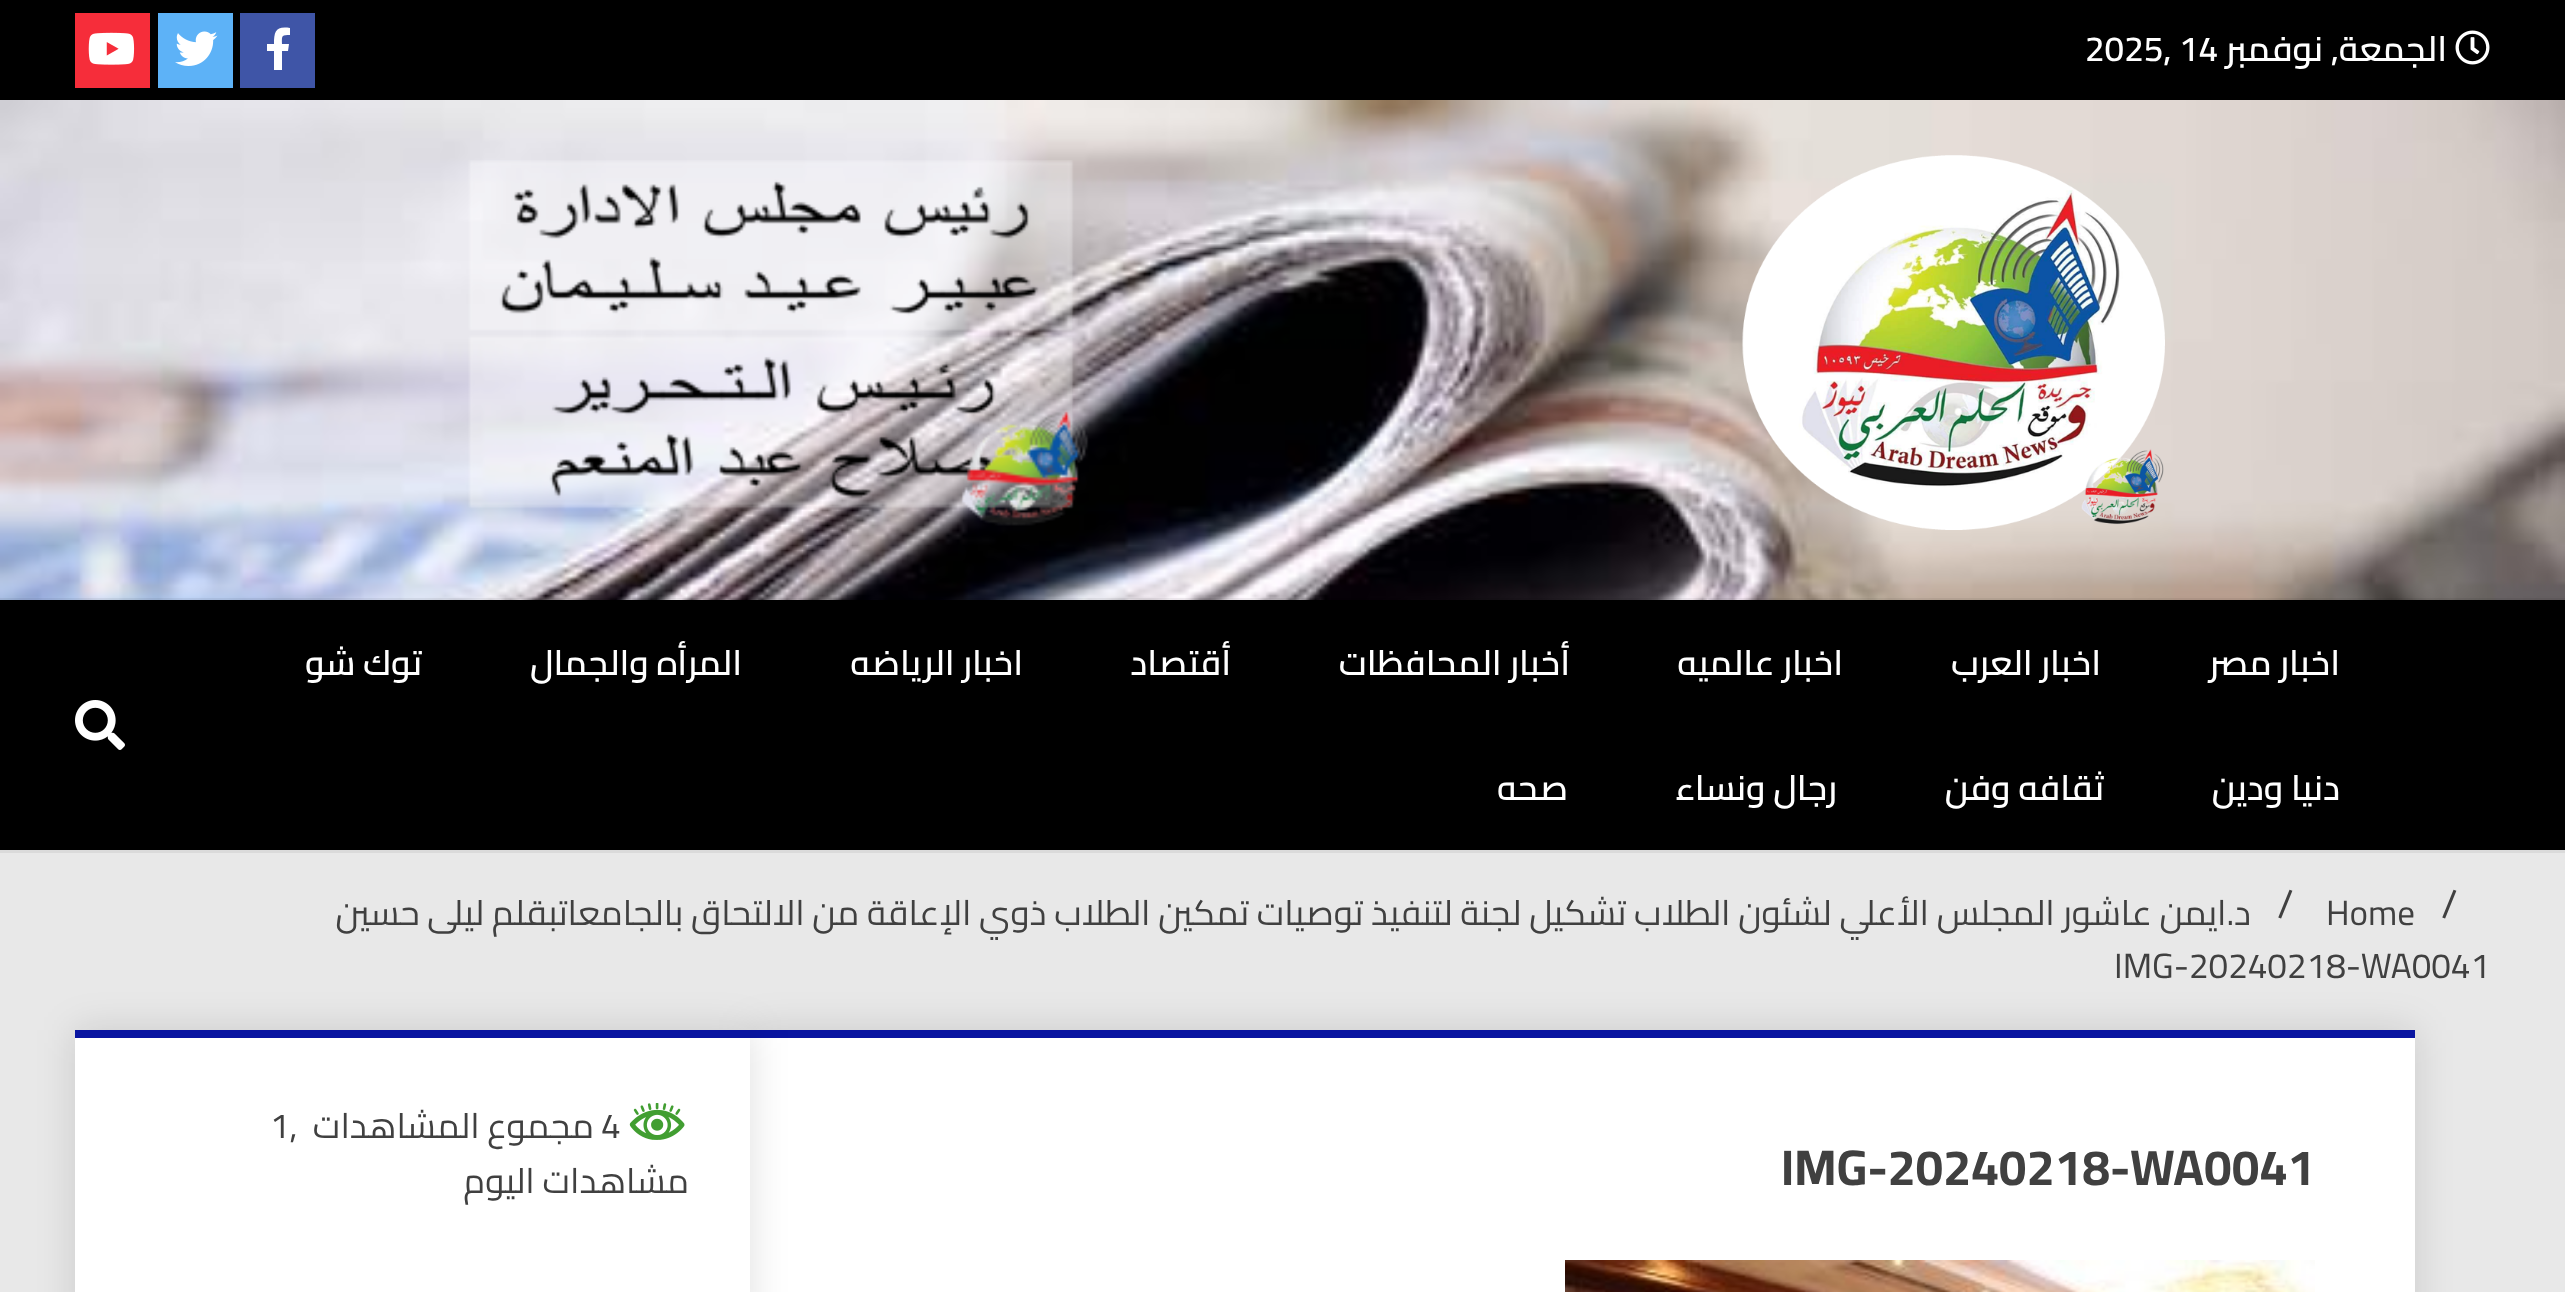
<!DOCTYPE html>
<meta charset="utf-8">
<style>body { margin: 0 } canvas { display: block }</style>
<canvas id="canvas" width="2565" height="1292"></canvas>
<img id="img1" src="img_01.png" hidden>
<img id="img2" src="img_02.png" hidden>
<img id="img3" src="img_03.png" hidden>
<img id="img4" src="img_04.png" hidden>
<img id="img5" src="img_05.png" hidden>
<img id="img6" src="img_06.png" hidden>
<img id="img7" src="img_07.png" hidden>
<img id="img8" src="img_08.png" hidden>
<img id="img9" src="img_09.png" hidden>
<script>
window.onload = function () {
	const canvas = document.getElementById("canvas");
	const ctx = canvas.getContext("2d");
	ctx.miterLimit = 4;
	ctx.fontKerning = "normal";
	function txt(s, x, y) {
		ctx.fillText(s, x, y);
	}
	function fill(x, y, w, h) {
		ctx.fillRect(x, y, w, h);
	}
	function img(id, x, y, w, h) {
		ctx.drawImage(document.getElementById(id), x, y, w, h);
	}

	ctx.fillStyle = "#E8E8E8";
	fill(0, 0, 2565, 1292);
	ctx.fillStyle = "#000000";
	fill(0, 0, 2565, 100);
	img("img1", 2455, 30, 35, 35);
	ctx.fillStyle = "#3F55A7";
	fill(240, 13, 75, 75);
	ctx.fillStyle = "#FFFFFF";
	ctx.beginPath();
	ctx.moveTo(288, 51);
	ctx.lineTo(289, 44);
	ctx.lineTo(282, 44);
	ctx.bezierCurveTo(282, 36, 281, 35, 290, 35);
	ctx.lineTo(290, 28);
	ctx.bezierCurveTo(276, 26, 274, 31, 274, 44);
	ctx.lineTo(267, 44);
	ctx.lineTo(267, 51);
	ctx.lineTo(274, 51);
	ctx.lineTo(274, 70);
	ctx.lineTo(282, 70);
	ctx.lineTo(282, 51);
	ctx.closePath();
	ctx.fill();
	ctx.fillStyle = "#5DB2F7";
	fill(158, 13, 75, 75);
	img("img2", 175, 31, 43, 35);
	ctx.fillStyle = "#F62D3A";
	fill(75, 13, 75, 75);
	img("img3", 88, 32, 47, 33);
	img("img4", 0, 100, 2565, 500);
	img("img5", 1742, 155, 423, 375);
	img("img6", 468, 160, 621, 366);
	ctx.strokeStyle = "rgba(0, 0, 0, 0.06)";
	ctx.lineWidth = 3;
	ctx.strokeRect(-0.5, 599.5, 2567, 252);
	ctx.fillStyle = "#000000";
	fill(0, 600, 2565, 250);
	img("img7", 75, 700, 50, 50);
	ctx.fillStyle = "rgba(0, 0, 0, 0.13)";
	ctx.filter = "blur(19px)";
	ctx.beginPath();
	ctx.rect(750, 1030, 1665, 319);
	ctx.fill();
	ctx.filter = "none";
	ctx.fillStyle = "#FFFFFF";
	fill(750, 1038, 1665, 254);
	ctx.fillStyle = "#0915A1";
	fill(750, 1030, 1665, 8);
	img("img8", 1565, 1260, 750, 32);
	ctx.fillStyle = "rgba(0, 0, 0, 0.13)";
	ctx.filter = "blur(19px)";
	ctx.beginPath();
	ctx.rect(75, 1030, 675, 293);
	ctx.fill();
	ctx.filter = "none";
	ctx.fillStyle = "#FFFFFF";
	fill(75, 1038, 675, 254);
	ctx.fillStyle = "#0915A1";
	fill(75, 1030, 675, 8);
	img("img9", 629, 1103, 56, 37);
	ctx.direction = "rtl";
	ctx.font = "600 35px Cairo";
	ctx.fillStyle = "#FFFFFF";
	txt("الجمعة, نوفمبر", 2447, 61);
	ctx.direction = "ltr";
	txt("2025, 14", 2085, 61);
	ctx.direction = "rtl";
	txt("اخبار مصر", 2340, 675);
	txt("اخبار العرب", 2101, 675);
	txt("اخبار عالميه", 1843, 675);
	txt("أخبار المحافظات", 1570, 675);
	txt("أقتصاد", 1231, 675);
	txt("اخبار الرياضه", 1023, 675);
	txt("المرأه والجمال", 742, 675);
	txt("توك شو", 422, 675);
	txt("دنيا ودين", 2340, 800);
	txt("ثقافه وفن", 2104, 800);
	txt("رجال ونساء", 1837, 800);
	txt("صحه", 1568, 800);
	ctx.direction = "ltr";
	ctx.font = "40px Cairo";
	ctx.fillStyle = "#404040";
	txt("/", 2441, 918);
	ctx.font = "35px Cairo";
	txt("Home", 2326, 925);
	ctx.font = "40px Cairo";
	txt("/", 2277, 918);
	ctx.direction = "rtl";
	ctx.font = "35px Cairo";
	txt("د.ايمن عاشور المجلس الأعلي لشئون الطلاب تشكيل لجنة لتنفيذ توصيات تمكين الطلاب ذوي الإعاقة من الالتحاق بالجامعاتبقلم ليلى حسين", 2251, 925);
	ctx.direction = "ltr";
	txt("IMG-20240218-WA0041", 2114, 978);
	ctx.font = "bold 50px Cairo";
	txt("IMG-20240218-WA0041", 1781, 1185);
	ctx.font = "35px Cairo";
	txt("4", 601, 1138);
	ctx.direction = "rtl";
	txt("مجموع المشاهدات", 594, 1138);
	ctx.direction = "ltr";
	txt("1,", 270, 1138);
	ctx.direction = "rtl";
	txt("مشاهدات اليوم", 689, 1193);
};
</script>
